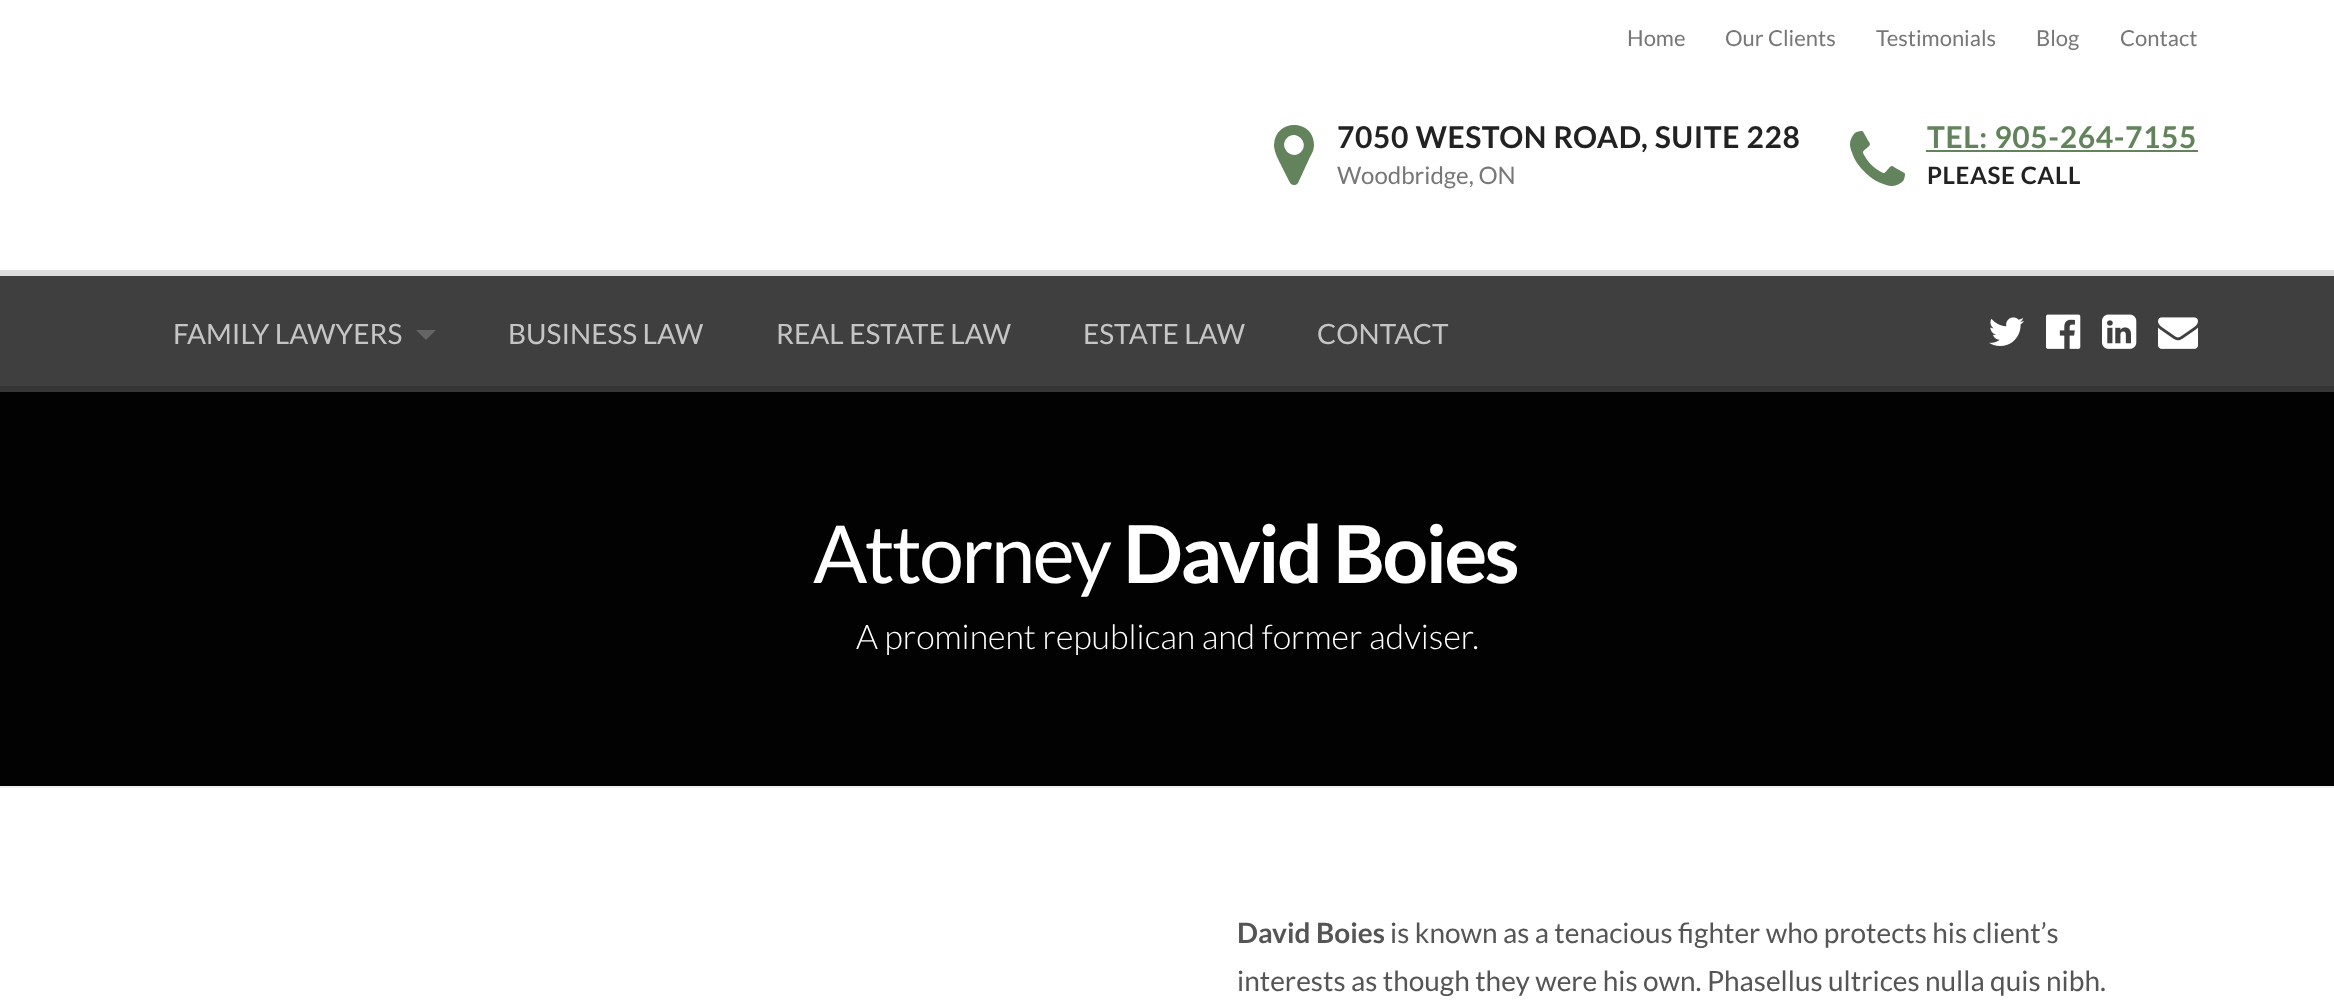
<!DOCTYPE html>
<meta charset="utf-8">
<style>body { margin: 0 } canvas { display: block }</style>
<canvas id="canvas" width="2334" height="1008"></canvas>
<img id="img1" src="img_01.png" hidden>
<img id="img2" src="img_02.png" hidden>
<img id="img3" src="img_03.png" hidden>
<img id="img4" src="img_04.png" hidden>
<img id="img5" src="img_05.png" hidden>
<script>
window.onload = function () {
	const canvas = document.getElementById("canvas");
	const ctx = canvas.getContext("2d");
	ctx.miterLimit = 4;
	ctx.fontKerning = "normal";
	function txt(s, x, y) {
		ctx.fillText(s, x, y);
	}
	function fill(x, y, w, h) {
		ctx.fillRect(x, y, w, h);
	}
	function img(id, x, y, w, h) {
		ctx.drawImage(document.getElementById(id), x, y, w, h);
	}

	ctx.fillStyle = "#FFFFFF";
	fill(0, 0, 2334, 1008);
	ctx.fillStyle = "#62835C";
	ctx.beginPath();
	ctx.moveTo(1301, 152);
	ctx.bezierCurveTo(1310, 143, 1296, 129, 1287, 138);
	ctx.bezierCurveTo(1278, 147, 1292, 161, 1301, 152);
	ctx.closePath();
	ctx.moveTo(1314, 145);
	ctx.bezierCurveTo(1314, 150, 1312, 153, 1310, 157);
	ctx.lineTo(1298, 183);
	ctx.bezierCurveTo(1297, 184, 1296, 185, 1295, 185);
	ctx.bezierCurveTo(1290, 186, 1289, 180, 1287, 177);
	ctx.lineTo(1282, 167);
	ctx.bezierCurveTo(1279, 161, 1274, 152, 1274, 145);
	ctx.bezierCurveTo(1275, 118, 1314, 119, 1314, 145);
	ctx.closePath();
	ctx.fill();
	img("img1", 1850, 131, 55, 55);
	fill(1926, 150, 272, 2);
	ctx.fillStyle = "#3F3F3F";
	fill(0, 276, 2334, 110);
	ctx.fillStyle = "#DDDDDD";
	fill(0, 270, 2334, 6);
	ctx.fillStyle = "#656565";
	ctx.beginPath();
	ctx.moveTo(416, 330);
	ctx.lineTo(436, 330);
	ctx.lineTo(426, 340);
	ctx.closePath();
	ctx.fill();
	img("img2", 1989, 317, 35, 29);
	img("img3", 2046, 314, 35, 35);
	img("img4", 2102, 314, 35, 35);
	img("img5", 2158, 317, 40, 32);
	ctx.fillStyle = "#363636";
	fill(0, 386, 2334, 6);
	ctx.fillStyle = "#020202";
	fill(0, 392, 2334, 394);
	ctx.fillStyle = "#F0F0F0";
	fill(0, 786, 2334, 2);
	ctx.font = "22px Lato";
	ctx.fillStyle = "#777777";
	txt("Home", 1627, 46);
	txt("Our Clients", 1725, 46);
	txt("Testimonials", 1876, 46);
	txt("Blog", 2036, 46);
	txt("Contact", 2120, 46);
	ctx.letterSpacing = "0.6px";
	ctx.font = "bold 30px Lato";
	ctx.fillStyle = "#222222";
	txt("7050 WESTON ROAD, SUITE 228", 1337, 148);
	ctx.letterSpacing = "0px";
	ctx.font = "24px Lato";
	ctx.fillStyle = "#777777";
	txt("Woodbridge, ON", 1337, 184);
	ctx.letterSpacing = "0.6px";
	ctx.font = "bold 30px Lato";
	ctx.fillStyle = "#62835C";
	txt("TEL: 905-264-7155", 1927, 148);
	ctx.font = "bold 24px Lato";
	ctx.fillStyle = "#222222";
	txt("PLEASE CALL", 1927, 184);
	ctx.letterSpacing = "0px";
	ctx.font = "28px Lato";
	ctx.fillStyle = "#C5C5C5";
	txt("FAMILY LAWYERS", 173, 344);
	txt("BUSINESS LAW", 508, 344);
	txt("REAL ESTATE LAW", 776, 344);
	txt("ESTATE LAW", 1083, 344);
	txt("CONTACT", 1317, 344);
	ctx.letterSpacing = "-2.6px";
	ctx.font = "80px Lato";
	ctx.fillStyle = "#FFFFFF";
	txt("Attorney", 813, 583);
	ctx.font = "bold 80px Lato";
	txt("David Boies", 1123, 583);
	ctx.letterSpacing = "0px";
	ctx.font = "300 34px Lato";
	txt("A prominent republican and former adviser.", 856, 649);
	ctx.font = "bold 28px Lato";
	ctx.fillStyle = "#555555";
	txt("David Boies", 1237, 943);
	ctx.font = "28px Lato";
	txt("is known as a tenacious fighter who protects his client’s", 1390, 943);
	txt("interests as though they were his own. Phasellus ultrices nulla quis nibh.", 1237, 991);
};
</script>
